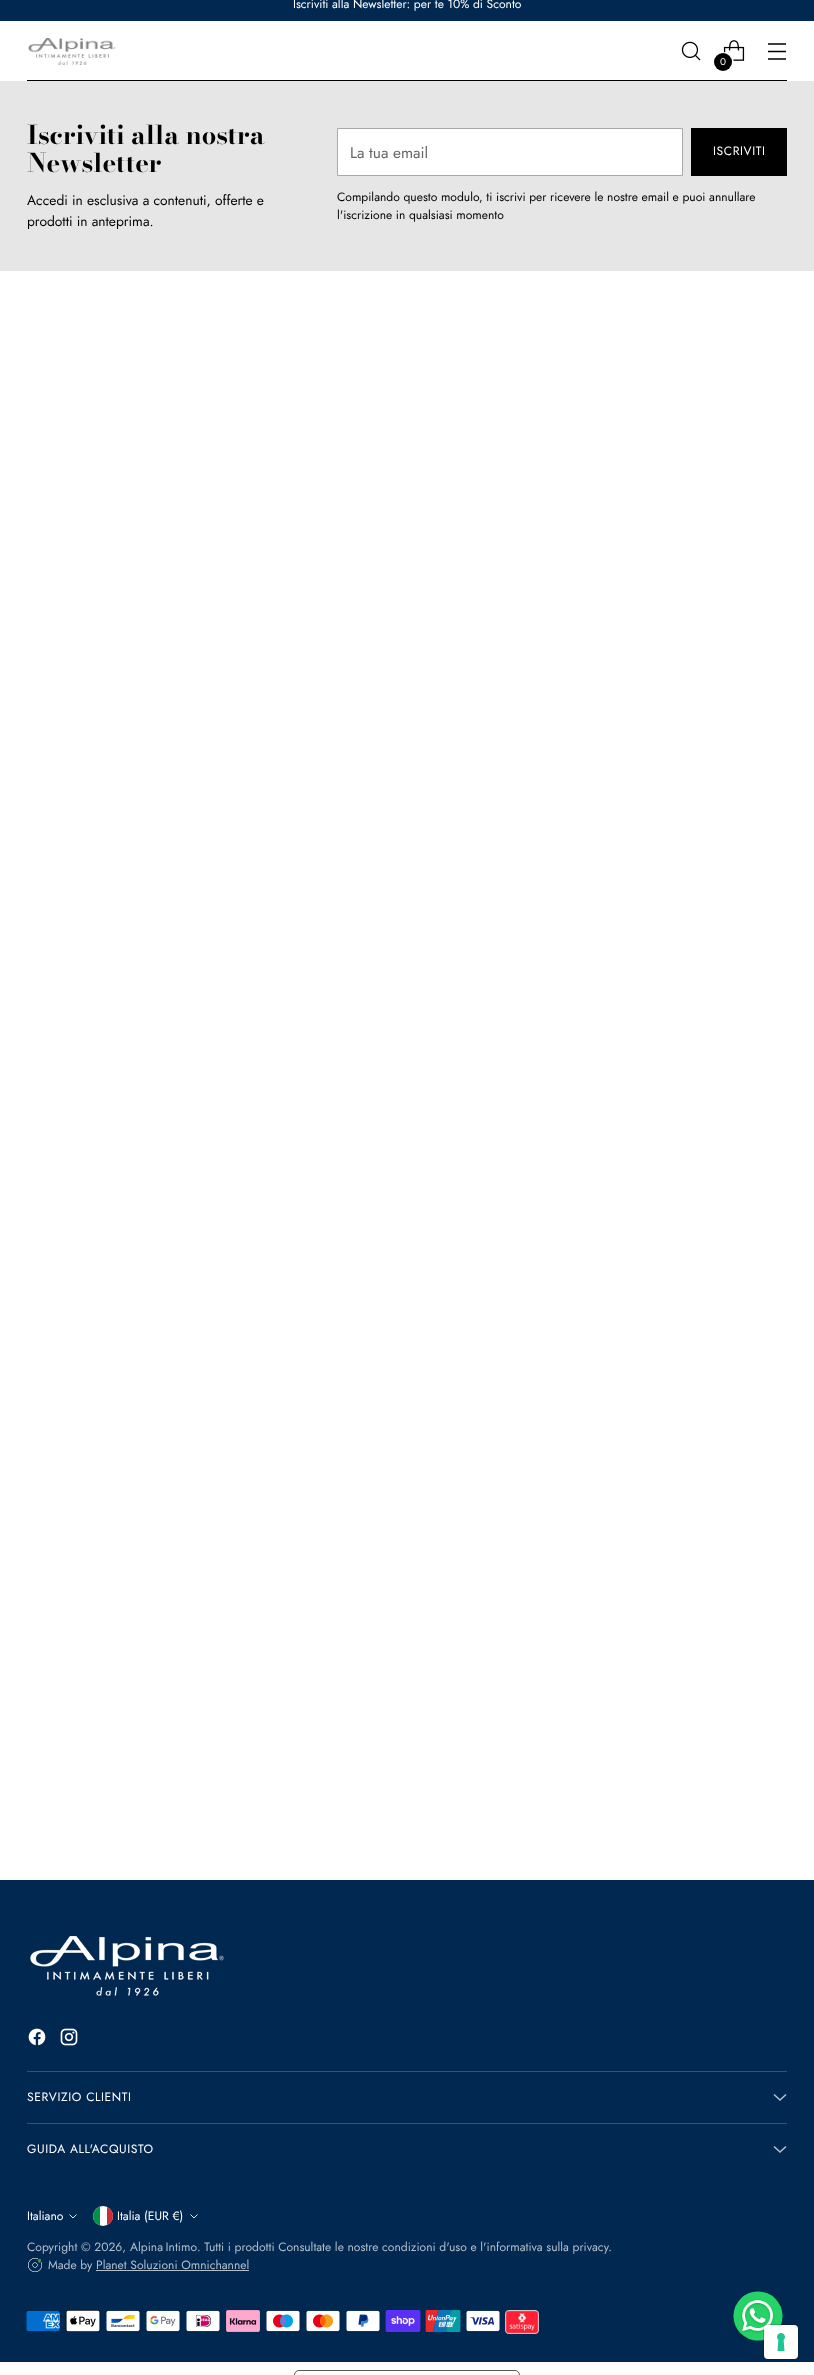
<!DOCTYPE html>
<meta charset="utf-8">
<style>body { margin: 0 } canvas { display: block }</style>
<canvas id="canvas" width="814" height="2375"></canvas>
<img id="img1" src="img_01.png" hidden>
<img id="img2" src="img_02.png" hidden>
<img id="img3" src="img_03.png" hidden>
<img id="img4" src="img_04.png" hidden>
<img id="img5" src="img_05.png" hidden>
<img id="img6" src="img_06.png" hidden>
<img id="img7" src="img_07.png" hidden>
<img id="img8" src="img_08.png" hidden>
<img id="img9" src="img_09.png" hidden>
<img id="img10" src="img_10.png" hidden>
<img id="img11" src="img_11.png" hidden>
<img id="img12" src="img_12.png" hidden>
<img id="img13" src="img_13.png" hidden>
<img id="img14" src="img_14.png" hidden>
<img id="img15" src="img_15.png" hidden>
<img id="img16" src="img_16.png" hidden>
<img id="img17" src="img_17.png" hidden>
<img id="img18" src="img_18.png" hidden>
<img id="img19" src="img_19.png" hidden>
<img id="img20" src="img_20.png" hidden>
<img id="img21" src="img_21.png" hidden>
<img id="img22" src="img_22.png" hidden>
<script>
window.onload = function () {
	const canvas = document.getElementById("canvas");
	const ctx = canvas.getContext("2d");
	ctx.miterLimit = 4;
	ctx.fontKerning = "normal";
	function txt(s, x, y) {
		ctx.fillText(s, x, y);
	}
	function fill(x, y, w, h) {
		ctx.fillRect(x, y, w, h);
	}
	function round(x, y, w, h, r) {
		ctx.beginPath();
		ctx.roundRect(x, y, w, h, r);
		ctx.fill();
	}
	function img(id, x, y, w, h) {
		ctx.drawImage(document.getElementById(id), x, y, w, h);
	}

	ctx.fillStyle = "#FFFFFF";
	fill(0, 0, 814, 2375);
	ctx.fillStyle = "#012851";
	fill(0, 0, 814, 21);
	ctx.fillStyle = "#000000";
	fill(27, 80, 760, 1);
	img("img1", 28, 38, 88, 27);
	img("img2", 681, 41, 20, 20);
	ctx.beginPath();
	ctx.moveTo(768, 51.5);
	ctx.lineTo(786, 51.5);
	ctx.moveTo(768, 44);
	ctx.lineTo(786, 44);
	ctx.moveTo(768, 59);
	ctx.lineTo(786, 59);
	ctx.strokeStyle = "#000000";
	ctx.lineWidth = 1.3;
	ctx.stroke();
	img("img3", 723, 40, 22, 21);
	ctx.beginPath();
	ctx.arc(723.5, 62.5, 9.5, 0, Math.PI * 2);
	ctx.strokeStyle = "#FFFFFF";
	ctx.lineWidth = 2;
	ctx.stroke();
	ctx.beginPath();
	ctx.arc(723, 62, 9, 0, Math.PI * 2);
	ctx.fill();
	ctx.fillStyle = "#E6E6E6";
	fill(0, 81, 814, 190);
	ctx.fillStyle = "#FFFFFF";
	ctx.beginPath();
	ctx.rect(337.5, 128.5, 345, 47);
	ctx.fill();
	ctx.strokeStyle = "#AAAAAA";
	ctx.lineWidth = 1;
	ctx.stroke();
	ctx.save();
	ctx.beginPath();
	ctx.rect(691, 128, 96, 48);
	ctx.clip();
	ctx.fillStyle = "#000000";
	ctx.beginPath();
	ctx.moveTo(658, 128);
	ctx.lineTo(792, 128);
	ctx.lineTo(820, 176);
	ctx.lineTo(686, 176);
	ctx.closePath();
	ctx.fill();
	ctx.restore();
	ctx.fillStyle = "#012851";
	fill(0, 1880, 814, 482);
	ctx.fillStyle = "#345374";
	fill(27, 2071, 760, 1);
	img("img4", 30, 1936, 194, 60);
	img("img5", 28, 2028, 18, 18);
	img("img6", 60, 2028, 18, 18);
	fill(27, 2123, 760, 1);
	ctx.beginPath();
	ctx.moveTo(774, 2094.5);
	ctx.lineTo(780, 2100);
	ctx.lineTo(786, 2094.5);
	ctx.moveTo(774, 2146.5);
	ctx.lineTo(780, 2152);
	ctx.lineTo(786, 2146.5);
	ctx.strokeStyle = "#B3BFCB";
	ctx.lineWidth = 1.6;
	ctx.stroke();
	ctx.beginPath();
	ctx.moveTo(69.5, 2214.5);
	ctx.lineTo(73, 2218);
	ctx.lineTo(76.5, 2214.5);
	ctx.strokeStyle = "#FFFFFF";
	ctx.lineWidth = 0.9;
	ctx.stroke();
	ctx.fillStyle = "#FFFFFF";
	ctx.beginPath();
	ctx.arc(103, 2216, 10, 0, Math.PI * 2);
	ctx.fill();
	ctx.save();
	ctx.beginPath();
	ctx.roundRect(93, 2206, 20, 20, 10);
	ctx.clip();
	ctx.fillStyle = "#009246";
	fill(93, 2206, 7, 20);
	ctx.fillStyle = "#CE2B37";
	fill(107, 2206, 6, 20);
	ctx.restore();
	ctx.beginPath();
	ctx.moveTo(190.5, 2214.5);
	ctx.lineTo(194, 2218);
	ctx.lineTo(197.5, 2214.5);
	ctx.stroke();
	img("img7", 28, 2258, 14, 14);
	ctx.fillStyle = "#B3BFCB";
	fill(96, 2270, 153, 1);
	img("img8", 26, 2310, 34, 22);
	img("img9", 65, 2310, 36, 22);
	img("img10", 106, 2310, 34, 22);
	img("img11", 146, 2310, 34, 22);
	img("img12", 186, 2310, 34, 22);
	img("img13", 226, 2310, 34, 22);
	img("img14", 266, 2310, 34, 22);
	img("img15", 306, 2310, 34, 22);
	img("img16", 346, 2310, 34, 22);
	img("img17", 385, 2310, 36, 22);
	img("img18", 425, 2310, 36, 22);
	img("img19", 466, 2310, 34, 22);
	img("img20", 505, 2310, 34, 24);
	img("img21", 733, 2291, 50, 51);
	ctx.beginPath();
	ctx.roundRect(763.5, 2324.5, 35, 35, 4.5);
	ctx.strokeStyle = "rgba(0, 0, 0, 0.15)";
	ctx.lineWidth = 1;
	ctx.stroke();
	ctx.fillStyle = "#FFFFFF";
	round(764, 2325, 34, 34, 4);
	img("img22", 777, 2333, 8, 18);
	ctx.beginPath();
	ctx.roundRect(294.5, 2370.5, 225, 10, 4.5);
	ctx.strokeStyle = "#595959";
	ctx.stroke();
	ctx.font = "12.1px Jost";
	txt("Iscriviti alla Newsletter: per te 10% di Sconto", 293, 8);
	ctx.font = "10px Jost";
	txt("0", 720, 65);
	ctx.font = "bold 25.75px Bodoni Moda";
	ctx.fillStyle = "#000000";
	txt("Iscriviti alla nostra", 27, 144);
	txt("Newsletter", 27, 172);
	ctx.font = "13.8px Jost";
	txt("Accedi in esclusiva a contenuti, offerte e", 27, 205);
	txt("prodotti in anteprima.", 27, 226);
	ctx.font = "15.5px Jost";
	ctx.fillStyle = "#666666";
	txt("La tua email", 350, 158);
	ctx.letterSpacing = "0.6px";
	ctx.font = "12.1px Jost";
	ctx.fillStyle = "#FFFFFF";
	txt("ISCRIVITI", 713, 155);
	ctx.letterSpacing = "0px";
	ctx.fillStyle = "#000000";
	txt("Compilando questo modulo, ti iscrivi per ricevere le nostre email e puoi annullare", 337, 201);
	txt("l'iscrizione in qualsiasi momento", 337, 219);
	ctx.letterSpacing = "0.6px";
	ctx.fillStyle = "#FFFFFF";
	txt("SERVIZIO CLIENTI", 27, 2101);
	txt("GUIDA ALL'ACQUISTO", 27, 2153);
	ctx.letterSpacing = "0px";
	txt("Italiano", 27, 2220);
	txt("Italia (EUR €)", 117, 2220);
	ctx.fillStyle = "#B3BFCB";
	txt("Copyright © 2026,", 27, 2251);
	ctx.wordSpacing = "-1px";
	txt("Alpina Intimo", 130, 2251);
	ctx.wordSpacing = "0px";
	txt(". Tutti i prodotti Consultate le nostre condizioni d'uso e l'informativa sulla privacy.", 197, 2251);
	txt("Made by Planet Soluzioni Omnichannel", 48, 2269);
};
</script>
